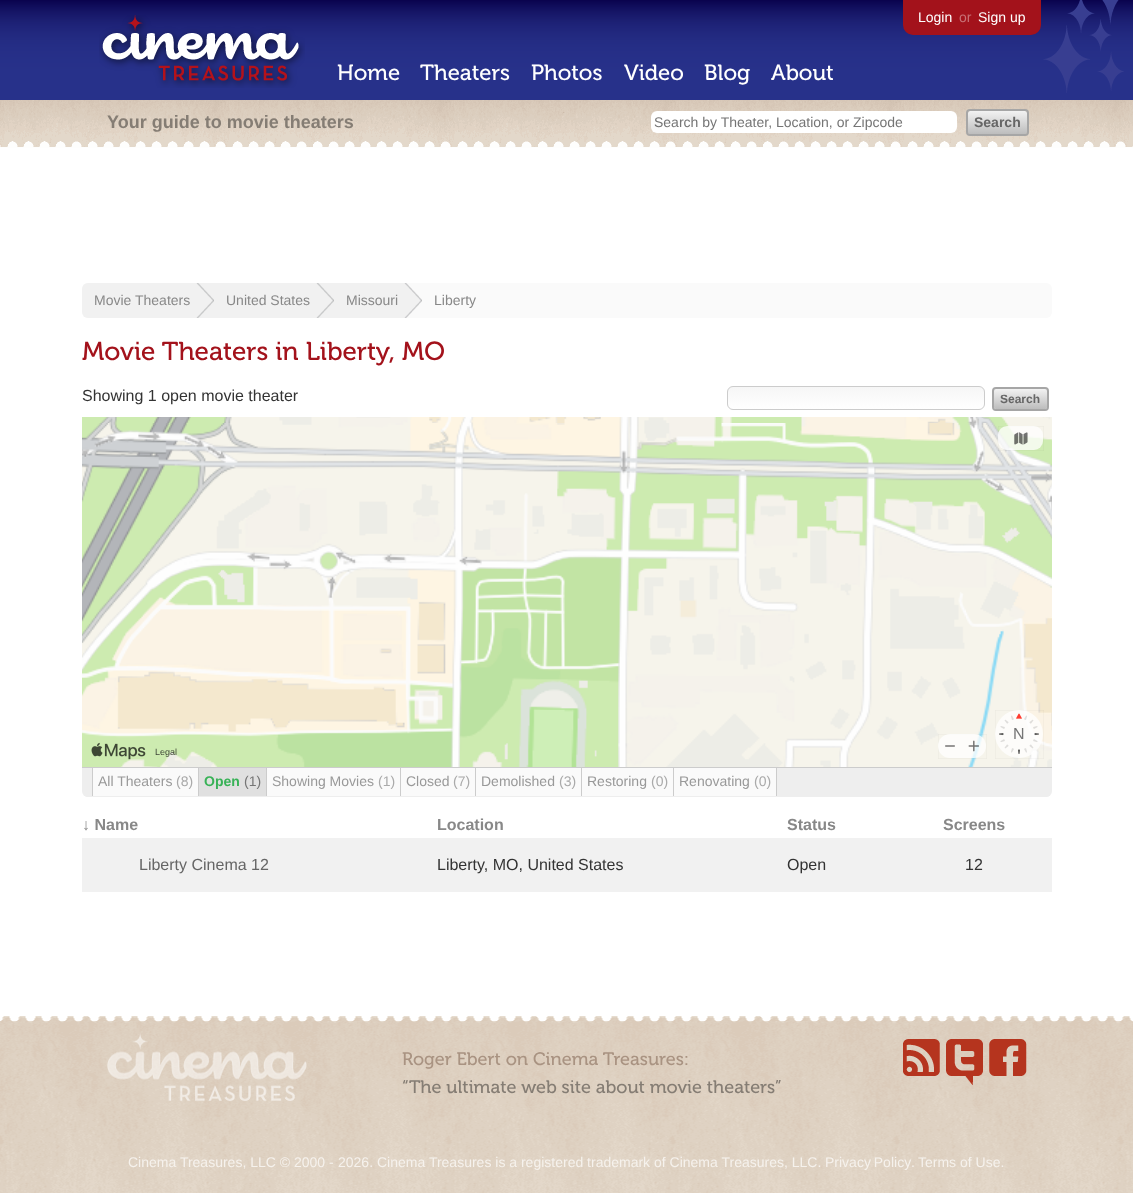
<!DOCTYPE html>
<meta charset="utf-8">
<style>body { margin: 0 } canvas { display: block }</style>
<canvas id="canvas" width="1133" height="1193"></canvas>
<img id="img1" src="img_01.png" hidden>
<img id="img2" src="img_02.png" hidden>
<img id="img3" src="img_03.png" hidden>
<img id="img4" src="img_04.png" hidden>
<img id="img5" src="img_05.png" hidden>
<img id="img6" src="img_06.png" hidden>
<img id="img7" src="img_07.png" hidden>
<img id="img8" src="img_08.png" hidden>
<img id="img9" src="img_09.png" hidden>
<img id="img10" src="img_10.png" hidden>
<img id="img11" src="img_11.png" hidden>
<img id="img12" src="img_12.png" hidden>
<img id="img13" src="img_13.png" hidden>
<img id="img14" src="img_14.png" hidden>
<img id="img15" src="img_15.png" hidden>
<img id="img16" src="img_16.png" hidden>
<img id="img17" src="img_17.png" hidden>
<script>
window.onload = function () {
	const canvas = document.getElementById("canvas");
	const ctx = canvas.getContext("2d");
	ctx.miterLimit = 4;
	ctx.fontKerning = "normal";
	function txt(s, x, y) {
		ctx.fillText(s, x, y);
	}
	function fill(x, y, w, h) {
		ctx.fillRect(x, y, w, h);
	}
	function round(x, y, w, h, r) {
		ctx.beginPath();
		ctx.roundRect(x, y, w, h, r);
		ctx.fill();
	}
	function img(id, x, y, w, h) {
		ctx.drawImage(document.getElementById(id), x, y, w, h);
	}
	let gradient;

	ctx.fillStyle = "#FFFFFF";
	fill(0, 0, 1133, 1193);
	img("img1", 0, 0, 1133, 100);
	img("img2", 99, 15, 206, 73);
	ctx.fillStyle = "#A3121B";
	ctx.beginPath();
	ctx.roundRect(903, 0, 138, 35, [0, 0, 10, 10]);
	ctx.fill();
	img("img3", 1043, 0, 81, 93);
	img("img4", 0, 100, 1133, 48);
	ctx.fillStyle = "#FFFFFF";
	round(651, 111, 306, 22, 6);
	gradient = ctx.createLinearGradient(998, 111, 998, 134);
	gradient.addColorStop(0, "#F2F2F2");
	gradient.addColorStop(1, "#BDBDBD");
	ctx.fillStyle = gradient;
	round(968, 111, 59, 23, 2);
	ctx.beginPath();
	ctx.roundRect(967, 110, 61, 25, 3);
	ctx.strokeStyle = "#A6A6A6";
	ctx.lineWidth = 2;
	ctx.stroke();
	ctx.fillStyle = "#FAFAFA";
	round(82, 283, 970, 35, 6);
	ctx.fillStyle = "#F1F1F1";
	ctx.beginPath();
	ctx.roundRect(82, 283, 132, 35, [6, 0, 0, 6]);
	ctx.fill();
	img("img5", 196, 283, 18, 35);
	fill(214, 283, 208, 35);
	img("img5", 316, 283, 18, 35);
	img("img6", 404, 283, 18, 35);
	ctx.save();
	ctx.beginPath();
	ctx.roundRect(727, 386, 258, 24, 6);
	ctx.clip();
	gradient = ctx.createLinearGradient(856, 387, 856, 409);
	gradient.addColorStop(0, "#F6F6F6");
	gradient.addColorStop(1, "#FFFFFF");
	ctx.fillStyle = gradient;
	fill(727, 387, 258, 22);
	ctx.restore();
	ctx.beginPath();
	ctx.roundRect(727.5, 386.5, 257, 23, 5.5);
	ctx.strokeStyle = "#CCCCCC";
	ctx.lineWidth = 1;
	ctx.stroke();
	gradient = ctx.createLinearGradient(1021, 389, 1021, 409);
	gradient.addColorStop(0, "#F2F2F2");
	gradient.addColorStop(1, "#BDBDBD");
	ctx.fillStyle = gradient;
	round(994, 389, 53, 20, 2);
	ctx.beginPath();
	ctx.roundRect(993, 388, 55, 22, 3);
	ctx.strokeStyle = "#A6A6A6";
	ctx.lineWidth = 2;
	ctx.stroke();
	img("img7", 82, 417, 970, 350);
	ctx.strokeStyle = "rgba(0, 0, 0, 0.05)";
	ctx.lineWidth = 0.5;
	ctx.strokeRect(998.25, 426.25, 45.5, 24.5);
	ctx.fillStyle = "rgba(255, 255, 255, 0.75)";
	round(998, 426, 45, 24, 9);
	img("img8", 1014, 432, 14, 13);
	ctx.strokeRect(938.25, 734.25, 48.5, 24.5);
	round(938, 734, 48, 24, 12);
	img("img9", 945, 745, 10, 2);
	img("img10", 968, 740, 11, 12);
	ctx.strokeRect(995.25, 710.25, 48.5, 48.5);
	ctx.beginPath();
	ctx.arc(1019, 734, 24, 0, Math.PI * 2);
	ctx.fill();
	img("img11", 999, 713, 40, 41);
	img("img12", 91, 742, 55, 18);
	ctx.fillStyle = "#EEEEEE";
	ctx.beginPath();
	ctx.roundRect(82, 767, 970, 30, [0, 0, 6, 6]);
	ctx.fill();
	ctx.fillStyle = "#CCCCCC";
	fill(82, 767, 970, 1);
	ctx.fillStyle = "#EEEEEE";
	ctx.beginPath();
	ctx.moveTo(88, 797);
	ctx.lineTo(1046, 797);
	ctx.bezierCurveTo(1049, 797, 1052, 794, 1052, 791);
	ctx.bezierCurveTo(1052, 794, 1049, 796, 1046, 796);
	ctx.lineTo(88, 796);
	ctx.bezierCurveTo(85, 796, 82, 794, 82, 791);
	ctx.bezierCurveTo(82, 794, 85, 797, 88, 797);
	ctx.closePath();
	ctx.fill();
	ctx.fillStyle = "#FAFAFA";
	fill(93, 768, 105, 28);
	ctx.fillStyle = "#CCCCCC";
	fill(198, 768, 1, 28);
	fill(92, 768, 1, 28);
	ctx.fillStyle = "#E0E0E0";
	fill(199, 768, 67, 28);
	ctx.fillStyle = "#CCCCCC";
	fill(266, 768, 1, 28);
	ctx.fillStyle = "#FAFAFA";
	fill(267, 768, 133, 28);
	ctx.fillStyle = "#CCCCCC";
	fill(400, 768, 1, 28);
	ctx.fillStyle = "#FAFAFA";
	fill(401, 768, 74, 28);
	ctx.fillStyle = "#CCCCCC";
	fill(475, 768, 1, 28);
	ctx.fillStyle = "#FAFAFA";
	fill(476, 768, 105, 28);
	ctx.fillStyle = "#CCCCCC";
	fill(581, 768, 1, 28);
	ctx.fillStyle = "#FAFAFA";
	fill(582, 768, 91, 28);
	ctx.fillStyle = "#CCCCCC";
	fill(673, 768, 1, 28);
	ctx.fillStyle = "#FAFAFA";
	fill(674, 768, 102, 28);
	ctx.fillStyle = "#CCCCCC";
	fill(776, 768, 1, 28);
	ctx.fillStyle = "#F1F1F1";
	fill(82, 838, 970, 54);
	img("img13", 0, 1016, 1133, 177);
	img("img14", 107, 1033, 200, 68);
	img("img15", 903, 1039, 37, 37);
	img("img16", 946, 1039, 37, 46);
	img("img17", 989, 1039, 38, 37);
	ctx.font = "22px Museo";
	ctx.fillStyle = "#FFFFFF";
	txt("Home", 337, 80);
	txt("Theaters", 420, 80);
	txt("Photos", 531, 80);
	txt("Video", 624, 80);
	txt("Blog", 704, 80);
	txt("About", 771, 80);
	ctx.font = "14px Liberation Sans";
	txt("Login", 918, 22);
	ctx.fillStyle = "#C87176";
	txt("or", 959, 22);
	ctx.fillStyle = "#FFFFFF";
	txt("Sign up", 978, 22);
	ctx.font = "bold 18px Liberation Sans";
	ctx.fillStyle = "#857D74";
	txt("Your guide to movie theaters", 107, 128);
	ctx.font = "14px Liberation Sans";
	ctx.fillStyle = "#757575";
	txt("Search by Theater, Location, or Zipcode", 654, 127);
	ctx.font = "bold 14px Liberation Sans";
	ctx.fillStyle = "#666666";
	txt("Search", 974, 127);
	ctx.font = "14px Liberation Sans";
	ctx.fillStyle = "#888888";
	txt("Movie Theaters", 94, 305);
	txt("United States", 226, 305);
	txt("Missouri", 346, 305);
	txt("Liberty", 434, 305);
	ctx.font = "26px Museo";
	ctx.fillStyle = "#A3121B";
	txt("Movie Theaters in Liberty, MO", 82, 360);
	ctx.font = "16px Liberation Sans";
	ctx.fillStyle = "#333333";
	txt("Showing 1 open movie theater", 82, 401);
	ctx.font = "bold 12px Liberation Sans";
	ctx.fillStyle = "#666666";
	txt("Search", 1000, 403);
	ctx.font = "16px Liberation Sans";
	ctx.fillStyle = "#757575";
	txt("N", 1013, 739);
	ctx.font = "9px Liberation Sans";
	ctx.fillStyle = "#3F4737";
	txt("Legal", 155, 755);
	ctx.font = "14px Liberation Sans";
	ctx.fillStyle = "#999999";
	txt("All Theaters", 98, 786);
	ctx.fillStyle = "#AAAAAA";
	txt("(8)", 176, 786);
	ctx.font = "bold 14px Liberation Sans";
	ctx.fillStyle = "#38B257";
	txt("Open", 204, 786);
	ctx.font = "14px Liberation Sans";
	ctx.fillStyle = "#757575";
	txt("(1)", 244, 786);
	ctx.fillStyle = "#999999";
	txt("Showing Movies", 272, 786);
	ctx.fillStyle = "#AAAAAA";
	txt("(1)", 378, 786);
	ctx.fillStyle = "#999999";
	txt("Closed", 406, 786);
	ctx.fillStyle = "#AAAAAA";
	txt("(7)", 453, 786);
	ctx.fillStyle = "#999999";
	txt("Demolished", 481, 786);
	ctx.fillStyle = "#AAAAAA";
	txt("(3)", 559, 786);
	ctx.fillStyle = "#999999";
	txt("Restoring", 587, 786);
	ctx.fillStyle = "#AAAAAA";
	txt("(0)", 651, 786);
	ctx.fillStyle = "#999999";
	txt("Renovating", 679, 786);
	ctx.fillStyle = "#AAAAAA";
	txt("(0)", 754, 786);
	ctx.font = "bold 16px Liberation Sans";
	ctx.fillStyle = "#888888";
	txt("↓ Name", 82, 830);
	txt("Location", 437, 830);
	txt("Status", 787, 830);
	txt("Screens", 943, 830);
	ctx.font = "16px Liberation Sans";
	ctx.fillStyle = "#666666";
	txt("Liberty Cinema 12", 139, 870);
	ctx.fillStyle = "#333333";
	txt("Liberty, MO, United States", 437, 870);
	txt("Open", 787, 870);
	txt("12", 965, 870);
	ctx.font = "18px Museo";
	ctx.fillStyle = "#A99382";
	txt("Roger Ebert on Cinema Treasures:", 402, 1065);
	ctx.fillStyle = "#857D74";
	txt("“The ultimate web site about movie theaters”", 402, 1093);
	ctx.font = "14px Liberation Sans";
	ctx.fillStyle = "#F6F2ED";
	txt("Cinema Treasures, LLC © 2000 -", 128, 1167);
	txt("2026.", 338, 1167);
	txt("Cinema Treasures is a registered trademark of Cinema Treasures, LLC.", 377, 1167);
	ctx.wordSpacing = "-1px";
	txt("Privacy Policy", 825, 1167);
	ctx.wordSpacing = "0px";
	txt(".", 911, 1167);
	txt("Terms of Use.", 918, 1167);
};
</script>
